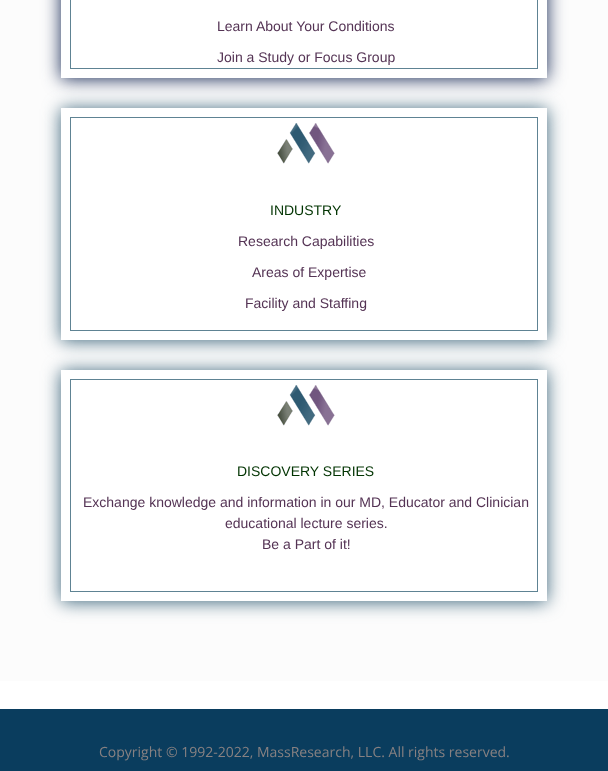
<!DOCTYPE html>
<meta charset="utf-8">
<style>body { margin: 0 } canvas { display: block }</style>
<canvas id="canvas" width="608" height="771"></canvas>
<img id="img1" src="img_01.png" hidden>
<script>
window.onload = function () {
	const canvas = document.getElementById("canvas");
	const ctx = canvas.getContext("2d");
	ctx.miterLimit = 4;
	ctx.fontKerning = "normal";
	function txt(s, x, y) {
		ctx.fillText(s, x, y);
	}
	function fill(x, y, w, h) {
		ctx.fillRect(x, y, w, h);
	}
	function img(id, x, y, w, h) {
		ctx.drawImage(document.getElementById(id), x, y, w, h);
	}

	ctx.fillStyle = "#FFFFFF";
	fill(0, 0, 608, 771);
	ctx.fillStyle = "#FCFCFC";
	fill(0, 0, 608, 681);
	ctx.fillStyle = "#182A56";
	ctx.filter = "blur(9px)";
	ctx.beginPath();
	ctx.rect(61, -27, 486, 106);
	ctx.fill();
	ctx.filter = "none";
	ctx.fillStyle = "#FFFFFF";
	fill(61, 0, 486, 78);
	ctx.strokeStyle = "#5E8393";
	ctx.strokeRect(70.5, -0.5, 467, 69);
	ctx.fillStyle = "#3C657B";
	ctx.filter = "blur(9px)";
	ctx.beginPath();
	ctx.rect(61, 109, 486, 232);
	ctx.fill();
	ctx.filter = "none";
	ctx.fillStyle = "#FFFFFF";
	fill(61, 108, 486, 232);
	ctx.strokeRect(70.5, 117.5, 467, 213);
	img("img1", 277, 123, 58, 41);
	ctx.fillStyle = "#3C657B";
	ctx.filter = "blur(9px)";
	ctx.beginPath();
	ctx.rect(61, 371, 486, 231);
	ctx.fill();
	ctx.filter = "none";
	ctx.fillStyle = "#FFFFFF";
	fill(61, 370, 486, 231);
	ctx.strokeRect(70.5, 379.5, 467, 212);
	img("img1", 277, 385, 58, 41);
	ctx.fillStyle = "#0A3D5E";
	fill(0, 709, 608, 62);
	ctx.font = "14px Liberation Sans";
	ctx.fillStyle = "#543354";
	txt("Learn About Your Conditions", 217, 31);
	txt("Join a Study or Focus Group", 217, 62);
	ctx.fillStyle = "#003300";
	txt("INDUSTRY", 270, 215);
	ctx.fillStyle = "#543354";
	txt("Research Capabilities", 238, 246);
	txt("Areas of Expertise", 252, 277);
	txt("Facility and Staffing", 245, 308);
	ctx.fillStyle = "#003300";
	txt("DISCOVERY SERIES", 237, 476);
	ctx.fillStyle = "#543354";
	txt("Exchange knowledge and information in our MD, Educator and Clinician", 83, 507);
	txt("educational lecture series.", 225, 528);
	txt("Be a Part of it!", 262, 549);
	ctx.font = "14px Open Sans";
	ctx.fillStyle = "#878182";
	txt("Copyright © 1992-2022, MassResearch, LLC. All rights reserved.", 99, 757);
};
</script>
